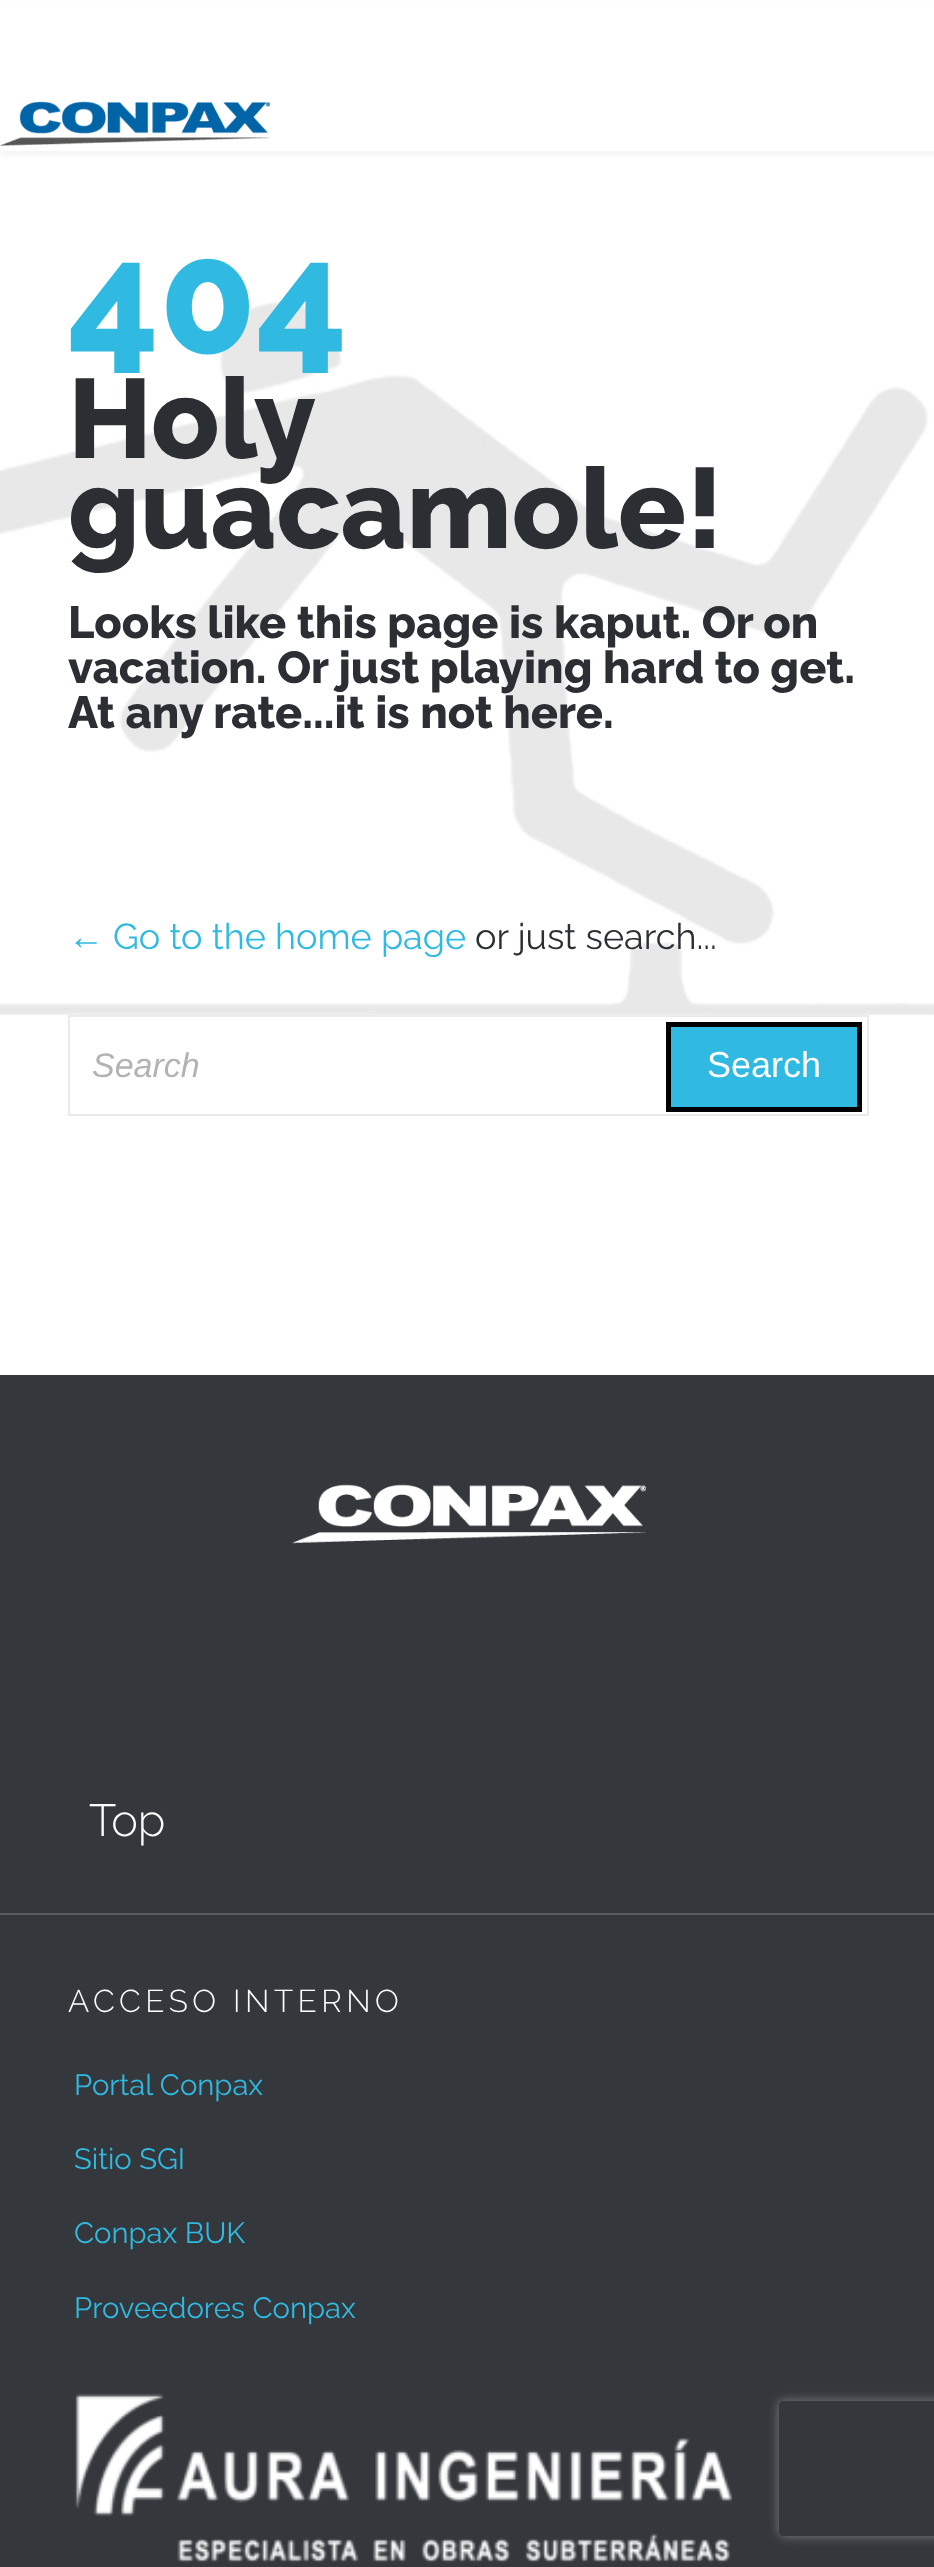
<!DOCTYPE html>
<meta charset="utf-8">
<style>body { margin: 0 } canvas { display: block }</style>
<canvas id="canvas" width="934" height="2567"></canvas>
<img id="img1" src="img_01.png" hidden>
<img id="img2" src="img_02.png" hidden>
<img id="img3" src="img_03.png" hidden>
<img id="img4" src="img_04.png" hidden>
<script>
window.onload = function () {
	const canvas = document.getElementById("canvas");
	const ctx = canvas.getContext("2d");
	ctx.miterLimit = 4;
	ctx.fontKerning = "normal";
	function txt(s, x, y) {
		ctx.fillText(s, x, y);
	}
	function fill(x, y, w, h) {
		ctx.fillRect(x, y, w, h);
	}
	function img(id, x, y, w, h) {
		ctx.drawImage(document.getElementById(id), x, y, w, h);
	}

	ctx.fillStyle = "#FFFFFF";
	fill(0, 0, 934, 2567);
	ctx.fillStyle = "rgba(0, 0, 0, 0.04)";
	ctx.filter = "blur(2px)";
	ctx.beginPath();
	ctx.rect(0, 5, 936, 150);
	ctx.fill();
	ctx.filter = "none";
	ctx.fillStyle = "#FFFFFF";
	fill(0, 4, 934, 147);
	img("img1", 0, 101, 270, 46);
	img("img2", 0, 301, 934, 714);
	ctx.strokeStyle = "#EAEAEB";
	ctx.lineWidth = 2;
	ctx.strokeRect(69, 1016, 799, 99);
	ctx.fillStyle = "#30BAE1";
	ctx.beginPath();
	ctx.rect(668.5, 1024.5, 191, 85);
	ctx.fill();
	ctx.strokeStyle = "#000000";
	ctx.lineWidth = 5;
	ctx.stroke();
	ctx.fillStyle = "#34373C";
	fill(0, 1375, 934, 1192);
	ctx.fillStyle = "#595B5F";
	fill(0, 1913, 934, 2);
	img("img3", 292, 1484, 354, 60);
	img("img4", 74, 2393, 659, 170);
	ctx.save();
	ctx.beginPath();
	ctx.moveTo(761, 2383);
	ctx.lineTo(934, 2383);
	ctx.lineTo(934, 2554);
	ctx.lineTo(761, 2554);
	ctx.closePath();
	ctx.moveTo(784, 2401);
	ctx.lineTo(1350, 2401);
	ctx.bezierCurveTo(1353, 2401, 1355, 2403, 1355, 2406);
	ctx.lineTo(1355, 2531);
	ctx.bezierCurveTo(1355, 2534, 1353, 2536, 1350, 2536);
	ctx.lineTo(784, 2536);
	ctx.bezierCurveTo(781, 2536, 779, 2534, 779, 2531);
	ctx.lineTo(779, 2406);
	ctx.bezierCurveTo(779, 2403, 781, 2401, 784, 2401);
	ctx.closePath();
	ctx.clip("evenodd");
	ctx.fillStyle = "#808080";
	ctx.filter = "blur(5.5px)";
	ctx.beginPath();
	ctx.roundRect(779, 2401, 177, 135, 5);
	ctx.fill();
	ctx.filter = "none";
	ctx.restore();
	ctx.font = "800 158px Raleway";
	ctx.fillStyle = "#30BAE1";
	txt("404", 68, 353);
	ctx.font = "800 112.5px Raleway";
	ctx.fillStyle = "#2B2F34";
	txt("Holy", 68, 458);
	txt("guacamole!", 68, 548);
	ctx.font = "800 45px Raleway";
	txt("Looks like this page is kaput. Or on", 68, 638);
	txt("vacation. Or just playing hard to get.", 68, 683);
	txt("At any rate...it is not here.", 68, 728);
	ctx.font = "36px Liberation Serif";
	ctx.fillStyle = "#30BAE1";
	txt("←", 68, 949);
	ctx.font = "36px Raleway";
	txt("Go to the home page", 113, 949);
	ctx.fillStyle = "#2B2F34";
	txt("or just search...", 475, 949);
	ctx.font = "italic 34px Liberation Sans";
	ctx.fillStyle = "#B3B3B3";
	txt("Search", 92, 1077);
	ctx.font = "36px Liberation Sans";
	ctx.fillStyle = "#FFFFFF";
	txt("Search", 707, 1077);
	ctx.font = "300 45px Raleway";
	txt("Top", 89, 1836);
	ctx.letterSpacing = "4.5px";
	ctx.font = "300 31.5px Raleway";
	txt("ACCESO INTERNO", 68, 2012);
	ctx.letterSpacing = "0px";
	ctx.font = "29.25px Raleway";
	ctx.fillStyle = "#30BAE1";
	txt("Portal Conpax", 74, 2095);
	txt("Sitio SGI", 74, 2169);
	txt("Conpax BUK", 74, 2243);
	txt("Proveedores Conpax", 74, 2318);
};
</script>
